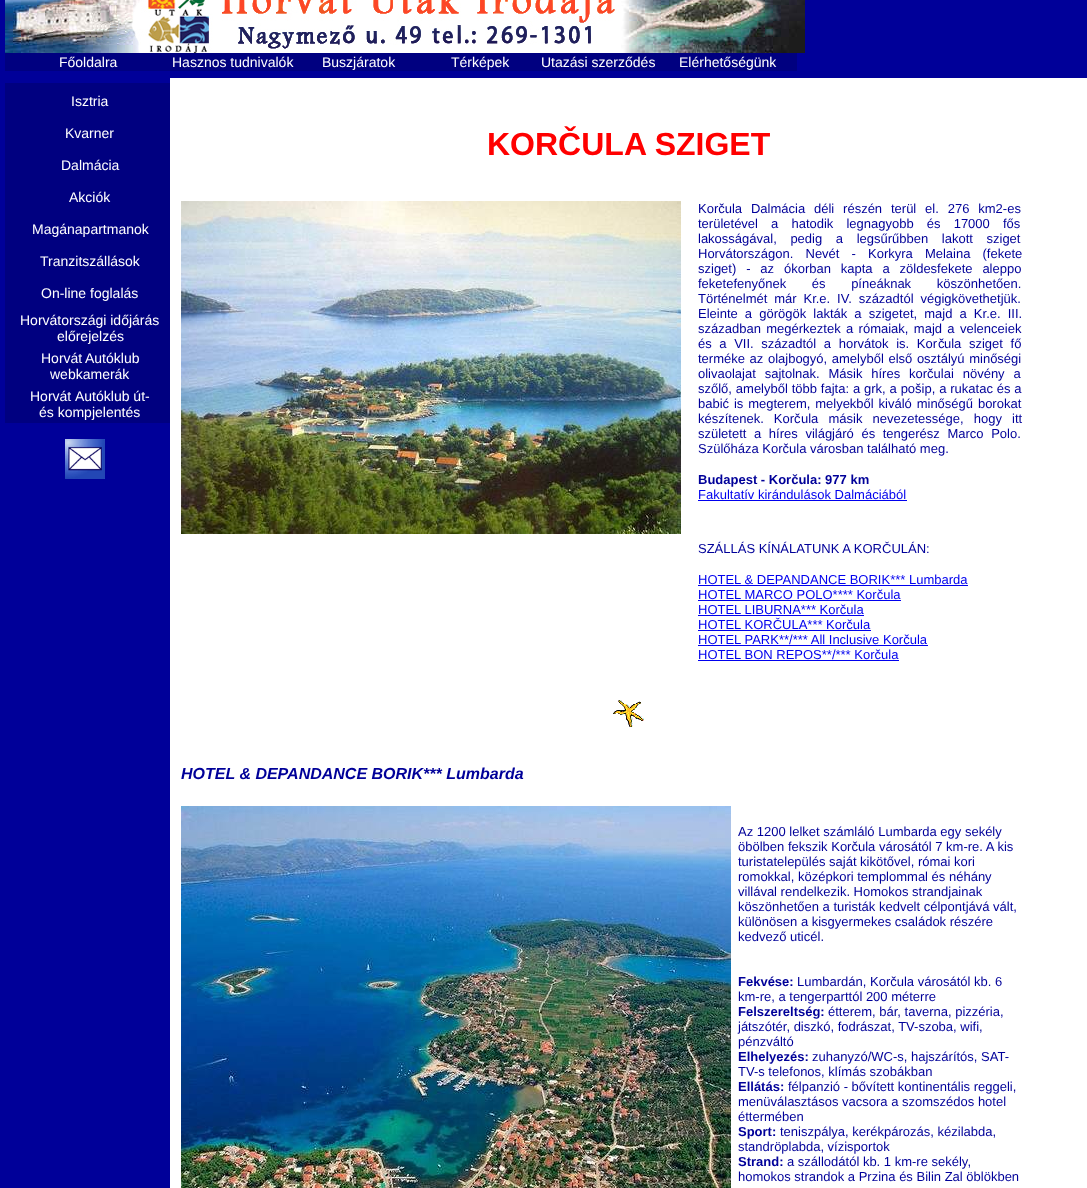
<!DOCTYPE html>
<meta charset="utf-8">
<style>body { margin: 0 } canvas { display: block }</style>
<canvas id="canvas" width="1087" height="1188"></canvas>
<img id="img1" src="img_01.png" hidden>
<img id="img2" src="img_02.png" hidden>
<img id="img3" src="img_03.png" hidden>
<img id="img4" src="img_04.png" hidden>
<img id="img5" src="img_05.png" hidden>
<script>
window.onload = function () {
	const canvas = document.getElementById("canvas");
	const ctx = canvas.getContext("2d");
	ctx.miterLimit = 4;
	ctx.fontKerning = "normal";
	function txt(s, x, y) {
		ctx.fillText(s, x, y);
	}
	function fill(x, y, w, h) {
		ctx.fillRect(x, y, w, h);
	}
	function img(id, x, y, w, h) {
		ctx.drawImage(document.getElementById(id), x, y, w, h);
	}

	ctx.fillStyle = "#FFFFFF";
	fill(0, 0, 1087, 1188);
	ctx.fillStyle = "#000099";
	fill(0, 0, 1087, 78);
	img("img1", 5, 0, 800, 53);
	ctx.fillStyle = "#000080";
	fill(5, 53, 792, 18);
	ctx.fillStyle = "#000099";
	fill(0, 78, 170, 1110);
	ctx.fillStyle = "#000080";
	fill(5, 83, 165, 340);
	img("img2", 65, 439, 40, 40);
	img("img3", 181, 201, 500, 333);
	ctx.fillStyle = "#0000EE";
	fill(698, 500, 209, 1);
	fill(698, 585, 270, 1);
	fill(698, 600, 203, 1);
	fill(698, 615, 166, 1);
	fill(698, 630, 173, 1);
	fill(698, 645, 230, 1);
	fill(698, 660, 201, 1);
	img("img4", 613, 700, 31, 27);
	img("img5", 181, 806, 550, 382);
	ctx.font = "14px Liberation Sans";
	ctx.fillStyle = "#FFFFFF";
	txt("Főoldalra", 59, 67);
	txt("Hasznos tudnivalók", 172, 67);
	txt("Buszjáratok", 322, 67);
	txt("Térképek", 451, 67);
	txt("Utazási szerződés", 541, 67);
	txt("Elérhetőségünk", 679, 67);
	txt("Isztria", 71, 106);
	txt("Kvarner", 65, 138);
	txt("Dalmácia", 61, 170);
	txt("Akciók", 69, 202);
	txt("Magánapartmanok", 32, 234);
	txt("Tranzitszállások", 40, 266);
	txt("On-line foglalás", 41, 298);
	txt("Horvátországi időjárás", 20, 325);
	txt("előrejelzés", 57, 341);
	txt("Horvát", 41, 363);
	txt("Autóklub", 85, 363);
	txt("webkamerák", 50, 379);
	txt("Horvát", 30, 401);
	txt("Autóklub út-", 75, 401);
	txt("és kompjelentés", 39, 417);
	ctx.font = "bold 32px Liberation Sans";
	ctx.fillStyle = "#FF0000";
	txt("KORČULA SZIGET", 487, 155);
	ctx.wordSpacing = "5.25px";
	ctx.font = "13px Liberation Sans";
	ctx.fillStyle = "#000099";
	txt("Korčula Dalmácia déli részén terül el. 276 km2-es", 698, 213);
	ctx.wordSpacing = "9.5px";
	txt("területével a hatodik legnagyobb és 17000 fős", 698, 228);
	ctx.wordSpacing = "10px";
	txt("lakosságával, pedig a legsűrűbben lakott sziget", 698, 243);
	ctx.wordSpacing = "8.5px";
	txt("Horvátországon. Nevét - Korkyra Melaina (fekete", 698, 258);
	ctx.wordSpacing = "6.25px";
	txt("sziget) - az ókorban kapta a zöldesfekete aleppo", 698, 273);
	ctx.wordSpacing = "22px";
	txt("feketefenyőnek és píneáknak köszönhetően.", 698, 288);
	ctx.wordSpacing = "3.25px";
	txt("Történelmét már Kr.e. IV. századtól végigkövethetjük.", 698, 303);
	ctx.wordSpacing = "3.5px";
	txt("Eleinte a görögök lakták a szigetet, majd a Kr.e. III.", 698, 318);
	ctx.wordSpacing = "1.75px";
	txt("században megérkeztek a rómaiak, majd a velenceiek", 698, 333);
	ctx.wordSpacing = "4px";
	txt("és a VII. századtól a horvátok is. Kor", 698, 348);
	ctx.wordSpacing = "0px";
	txt("č", 938, 348);
	ctx.wordSpacing = "4px";
	txt("ula sziget fő", 944, 348);
	ctx.wordSpacing = "1px";
	txt("terméke az olajbogyó, amelyből első osztályú minőségi", 698, 363);
	ctx.wordSpacing = "5.25px";
	txt("olivaolajat sajtolnak. Másik híres korčulai növény a", 698, 378);
	ctx.wordSpacing = "0.25px";
	txt("szőlő, amelyből több fajta: a grk, a pošip, a rukatac és a", 698, 393);
	ctx.wordSpacing = "1.25px";
	txt("babić is megterem, melyekből kiváló minőségű borokat", 698, 408);
	ctx.wordSpacing = "6.5px";
	txt("készítenek. Kor", 698, 423);
	ctx.wordSpacing = "0px";
	txt("č", 794, 423);
	ctx.wordSpacing = "6.5px";
	txt("ula másik nevezetessége, hogy itt", 801, 423);
	ctx.wordSpacing = "4px";
	txt("született a híres világjáró és tengerész Marco Polo.", 698, 438);
	ctx.wordSpacing = "0px";
	txt("Szülőháza Korčula városban található meg.", 698, 453);
	ctx.font = "bold 13px Liberation Sans";
	txt("Budapest - Korčula: 977 km", 698, 484);
	ctx.font = "13px Liberation Sans";
	ctx.fillStyle = "#0000EE";
	txt("Fakultatív kirándulások Dalmáciából", 698, 499);
	ctx.fillStyle = "#000099";
	txt("SZÁLLÁS KÍNÁLATUNK A KORČULÁN:", 698, 553);
	ctx.fillStyle = "#0000EE";
	txt("HOTEL & DEPANDANCE BORIK*** Lumbarda", 698, 584);
	txt("HOTEL MARCO POLO**** Korčula", 698, 599);
	txt("HOTEL LIBURNA*** Korčula", 698, 614);
	txt("HOTEL KORČULA*** Korčula", 698, 629);
	txt("HOTEL PARK**/*** All Inclusive Korčula", 698, 644);
	txt("HOTEL BON REPOS**/*** Korčula", 698, 659);
	ctx.font = "italic bold 16px Liberation Sans";
	ctx.fillStyle = "#000099";
	txt("HOTEL & DEPANDANCE BORIK*** Lumbarda", 181, 779);
	ctx.font = "13px Liberation Sans";
	txt("Az 1200 lelket számláló Lumbarda egy sekély", 738, 836);
	txt("öbölben fekszik Korčula városától 7 km-re. A kis", 738, 851);
	txt("turistatelepülés saját kikötővel, római kori", 738, 866);
	txt("romokkal, középkori templommal és néhány", 738, 881);
	txt("villával rendelkezik. Homokos strandjainak", 738, 896);
	txt("köszönhetően a turisták kedvelt célpontjává vált,", 738, 911);
	txt("különösen a kisgyermekes családok részére", 738, 926);
	txt("kedvező uticél.", 738, 941);
	ctx.font = "bold 13px Liberation Sans";
	txt("Fekvése:", 738, 986);
	ctx.font = "13px Liberation Sans";
	txt("Lumbardán, Korčula városától kb. 6", 797, 986);
	txt("km-re, a tengerparttól 200 méterre", 738, 1001);
	ctx.font = "bold 13px Liberation Sans";
	txt("Felszereltség:", 738, 1016);
	ctx.font = "13px Liberation Sans";
	txt("étterem, bár, taverna, pizzéria,", 828, 1016);
	txt("játszótér, diszkó, fodrászat, TV-szoba, wifi,", 738, 1031);
	txt("pénzváltó", 738, 1046);
	ctx.font = "bold 13px Liberation Sans";
	txt("Elhelyezés:", 738, 1061);
	ctx.font = "13px Liberation Sans";
	txt("zuhanyzó/WC-s, hajszárítós, SAT-", 812, 1061);
	txt("TV-s telefonos, klímás szobákban", 738, 1076);
	ctx.font = "bold 13px Liberation Sans";
	txt("Ellátás:", 738, 1091);
	ctx.font = "13px Liberation Sans";
	txt("félpanzió - bővített kontinentális reggeli,", 788, 1091);
	txt("menüválasztásos vacsora a szomszédos hotel", 738, 1106);
	txt("éttermében", 738, 1121);
	ctx.font = "bold 13px Liberation Sans";
	txt("Sport:", 738, 1136);
	ctx.font = "13px Liberation Sans";
	txt("teniszpálya, kerékpározás, kézilabda,", 780, 1136);
	txt("standröplabda, vízisportok", 738, 1151);
	ctx.font = "bold 13px Liberation Sans";
	txt("Strand:", 738, 1166);
	ctx.font = "13px Liberation Sans";
	txt("a szállodától kb. 1 km-re sekély,", 787, 1166);
	txt("homokos strandok a Przina és Bilin Zal öblökben", 738, 1181);
};
</script>
